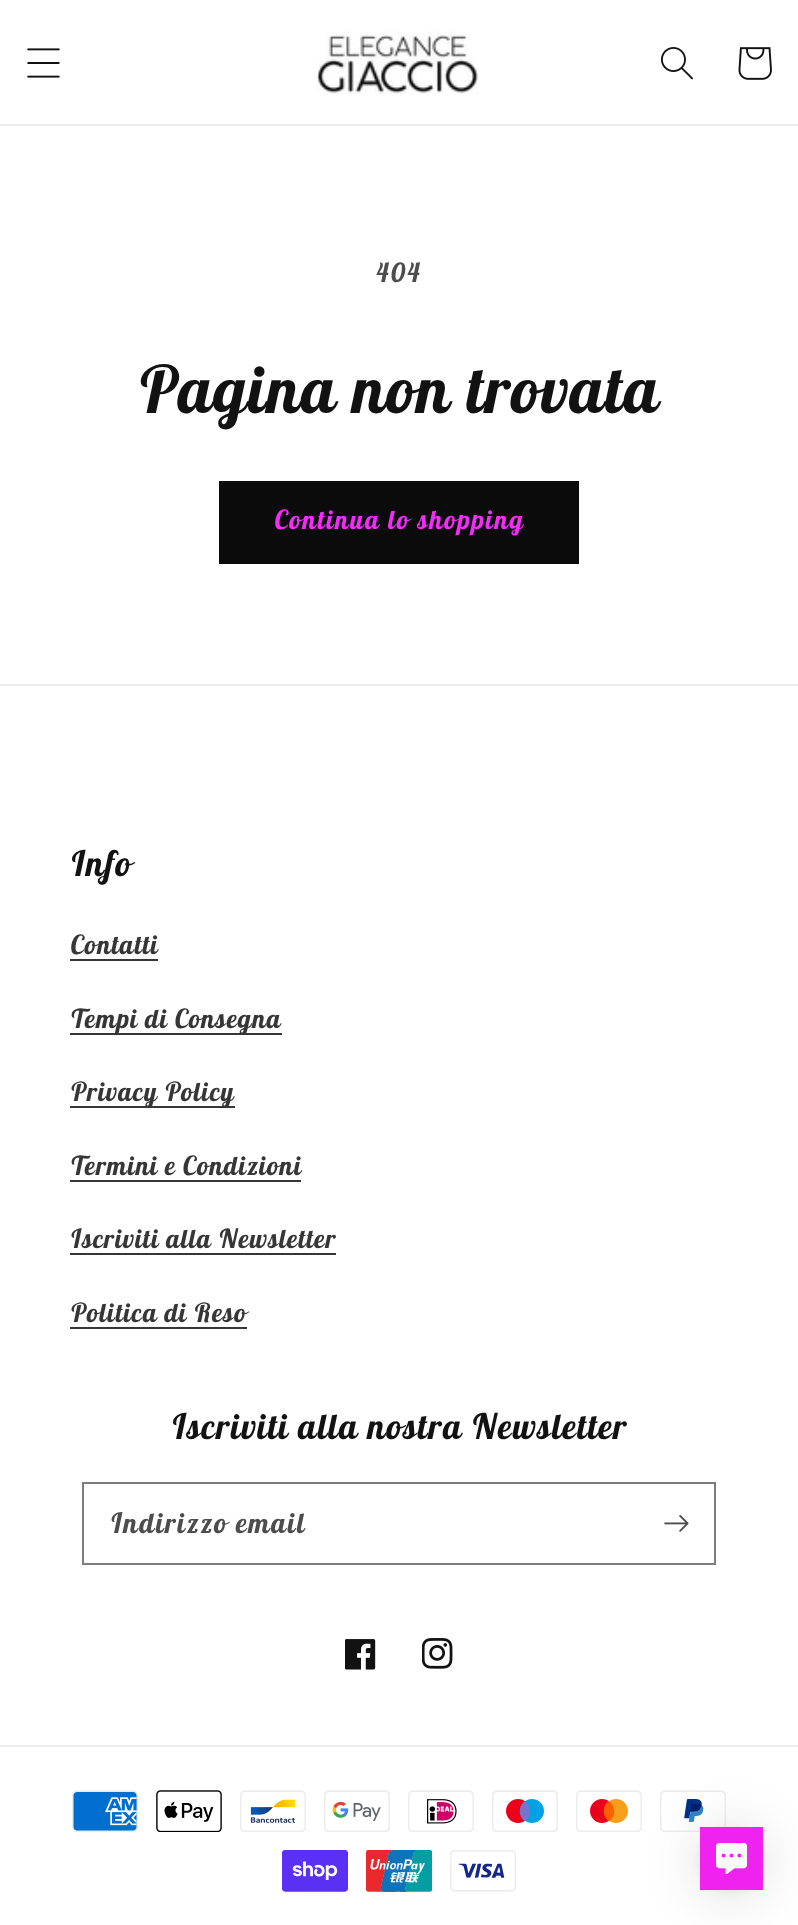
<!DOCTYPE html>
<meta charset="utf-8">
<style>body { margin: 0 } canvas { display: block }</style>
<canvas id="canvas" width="798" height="1925"></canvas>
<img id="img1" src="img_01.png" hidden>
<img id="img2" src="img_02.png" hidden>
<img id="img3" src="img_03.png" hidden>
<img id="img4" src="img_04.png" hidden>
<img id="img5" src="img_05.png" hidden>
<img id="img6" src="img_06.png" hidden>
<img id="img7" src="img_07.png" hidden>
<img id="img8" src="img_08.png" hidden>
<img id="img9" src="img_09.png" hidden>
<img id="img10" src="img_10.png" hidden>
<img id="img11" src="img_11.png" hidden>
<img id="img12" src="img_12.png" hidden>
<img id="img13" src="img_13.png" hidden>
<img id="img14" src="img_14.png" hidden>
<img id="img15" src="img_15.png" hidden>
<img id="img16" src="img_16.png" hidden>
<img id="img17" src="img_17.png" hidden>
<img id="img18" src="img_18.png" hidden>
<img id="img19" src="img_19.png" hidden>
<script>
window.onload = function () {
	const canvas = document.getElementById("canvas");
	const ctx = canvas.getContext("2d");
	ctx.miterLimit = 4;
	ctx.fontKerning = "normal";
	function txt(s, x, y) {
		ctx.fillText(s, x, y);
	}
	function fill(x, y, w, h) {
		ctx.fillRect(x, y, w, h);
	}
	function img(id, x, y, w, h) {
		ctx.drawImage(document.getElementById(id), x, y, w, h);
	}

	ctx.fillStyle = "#FFFFFF";
	fill(0, 0, 798, 1925);
	ctx.fillStyle = "#ECECEC";
	fill(0, 124, 798, 2);
	img("img1", 27, 48, 33, 30);
	img("img2", 316, 31, 163, 64);
	img("img3", 661, 47, 32, 33);
	img("img4", 738, 47, 34, 33);
	ctx.strokeStyle = "#0B0B0B";
	ctx.lineWidth = 2;
	ctx.strokeRect(220, 482, 358, 81);
	ctx.fillStyle = "#0B0B0B";
	fill(221, 483, 356, 79);
	ctx.fillStyle = "#ECECEC";
	fill(0, 684, 798, 2);
	ctx.fillStyle = "#363636";
	fill(70, 959, 88, 2);
	fill(70, 1033, 212, 2);
	fill(70, 1106, 165, 2);
	fill(70, 1180, 231, 2);
	fill(70, 1253, 266, 2);
	fill(70, 1327, 177, 2);
	ctx.strokeStyle = "#7D7D7D";
	ctx.strokeRect(83, 1483, 632, 81);
	img("img5", 664, 1515, 25, 17);
	img("img6", 345, 1639, 31, 31);
	img("img7", 422, 1638, 31, 31);
	ctx.fillStyle = "#ECECEC";
	fill(0, 1745, 798, 2);
	img("img8", 72, 1790, 66, 42);
	img("img9", 156, 1790, 66, 42);
	img("img10", 240, 1790, 66, 42);
	img("img11", 324, 1790, 66, 42);
	img("img12", 408, 1790, 66, 42);
	img("img13", 492, 1790, 66, 42);
	img("img14", 576, 1790, 66, 42);
	img("img15", 660, 1790, 66, 42);
	img("img16", 282, 1850, 66, 42);
	img("img17", 366, 1850, 66, 42);
	img("img18", 450, 1850, 66, 42);
	ctx.fillStyle = "rgba(0, 0, 0, 0.16)";
	ctx.filter = "blur(28px)";
	ctx.beginPath();
	ctx.roundRect(700, 1831, 63, 63, 31.5);
	ctx.fill();
	ctx.filter = "none";
	ctx.fillStyle = "rgba(0, 0, 0, 0.06)";
	ctx.filter = "blur(5px)";
	ctx.beginPath();
	ctx.roundRect(700, 1829, 63, 63, 31.5);
	ctx.fill();
	ctx.filter = "none";
	ctx.fillStyle = "#F022F0";
	fill(700, 1827, 63, 63);
	img("img19", 716, 1843, 31, 31);
	ctx.letterSpacing = "1.05px";
	ctx.font = "italic bold 26.25px Lobster Two";
	ctx.fillStyle = "#4D4D4D";
	txt("404", 376, 282);
	ctx.letterSpacing = "1.3px";
	ctx.font = "italic bold 65.5px Lobster Two";
	ctx.fillStyle = "#121212";
	txt("Pagina non trovata", 137, 413);
	ctx.letterSpacing = "1.75px";
	ctx.font = "italic bold 26.25px Lobster Two";
	ctx.fillStyle = "#F22CF9";
	txt("Continua lo shopping", 274, 529);
	ctx.letterSpacing = "1.3px";
	ctx.font = "italic bold 35px Lobster Two";
	ctx.fillStyle = "#121212";
	txt("Info", 70, 876);
	ctx.letterSpacing = "1.05px";
	ctx.font = "italic bold 26.25px Lobster Two";
	ctx.fillStyle = "#363636";
	txt("Contatti", 70, 954);
	txt("Tempi di Consegna", 70, 1028);
	txt("Privacy Policy", 70, 1101);
	txt("Termini e Condizioni", 70, 1175);
	txt("Iscriviti alla Newsletter", 70, 1248);
	txt("Politica di Reso", 70, 1322);
	ctx.letterSpacing = "1.3px";
	ctx.font = "italic bold 35px Lobster Two";
	ctx.fillStyle = "#121212";
	txt("Iscriviti alla nostra Newsletter", 171, 1439);
	ctx.letterSpacing = "1.75px";
	ctx.font = "italic bold 28px Lobster Two";
	ctx.fillStyle = "#4D4D4D";
	txt("Indirizzo email", 110, 1533);
};
</script>
